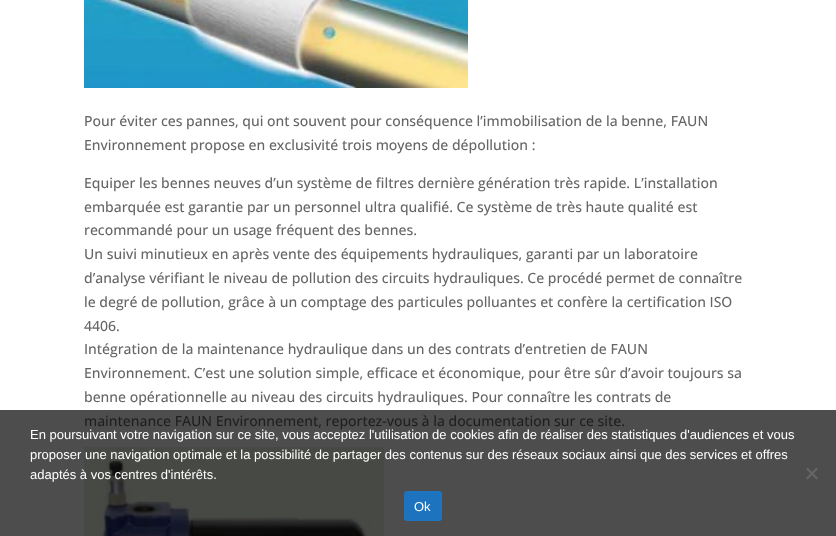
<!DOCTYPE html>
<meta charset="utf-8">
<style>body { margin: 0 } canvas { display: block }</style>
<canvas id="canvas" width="836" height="536"></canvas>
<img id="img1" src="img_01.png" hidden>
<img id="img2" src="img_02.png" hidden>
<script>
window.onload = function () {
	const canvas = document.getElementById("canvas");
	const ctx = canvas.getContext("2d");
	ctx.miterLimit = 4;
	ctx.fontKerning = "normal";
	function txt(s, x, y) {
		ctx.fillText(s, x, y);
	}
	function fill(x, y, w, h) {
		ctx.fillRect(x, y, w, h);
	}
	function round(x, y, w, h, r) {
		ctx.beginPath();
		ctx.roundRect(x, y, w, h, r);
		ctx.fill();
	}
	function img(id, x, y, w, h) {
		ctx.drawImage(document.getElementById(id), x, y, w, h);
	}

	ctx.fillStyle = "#FFFFFF";
	fill(0, 0, 836, 536);
	ctx.fillStyle = "#4D4D4D";
	fill(0, 410, 836, 126);
	img("img1", 84, 0, 384, 88);
	img("img2", 84, 447, 300, 89);
	ctx.fillStyle = "#666666";
	ctx.beginPath();
	ctx.moveTo(816.5, 467.5);
	ctx.lineTo(818, 469);
	ctx.lineTo(807.5, 479.5);
	ctx.lineTo(806, 478);
	ctx.closePath();
	ctx.fill();
	ctx.beginPath();
	ctx.moveTo(806, 469);
	ctx.lineTo(807.5, 467.5);
	ctx.lineTo(818, 478);
	ctx.lineTo(816.5, 479.5);
	ctx.closePath();
	ctx.fill();
	ctx.fillStyle = "#1E73BE";
	round(404, 491, 38, 30, 3);
	ctx.font = "500 14px Open Sans";
	ctx.fillStyle = "#666666";
	txt("Pour éviter ces pannes, qui ont souvent pour conséquence l’immobilisation de la benne, FAUN", 84, 126);
	txt("Environnement propose en exclusivité trois moyens de dépollution :", 84, 150);
	txt("Equiper les bennes neuves d’un système de filtres dernière génération très rapide. L’installation", 84, 188);
	txt("embarquée est garantie par un personnel ultra qualifié. Ce système de très haute qualité est", 84, 212);
	txt("recommandé pour un usage fréquent des bennes.", 84, 235);
	txt("Un suivi minutieux en après vente des équipements hydrauliques, garanti par un laboratoire", 84, 259);
	txt("d’analyse vérifiant le niveau de pollution des circuits hydrauliques. Ce procédé permet de connaître", 84, 283);
	txt("le degré de pollution, grâce à un comptage des particules polluantes et confère la certification ISO", 84, 307);
	txt("4406.", 84, 331);
	txt("Intégration de la maintenance hydraulique dans un des contrats d’entretien de FAUN", 84, 354);
	txt("Environnement. C’est une solution simple, efficace et économique, pour être sûr d’avoir toujours sa", 84, 378);
	txt("benne opérationnelle au niveau des circuits hydrauliques. Pour connaître les contrats de", 84, 402);
	ctx.fillStyle = "#1F1F1F";
	txt("maintenance FAUN Environnement, reportez-vous à la documentation sur ce site.", 84, 426);
	ctx.font = "13px Liberation Sans";
	ctx.fillStyle = "#FFFFFF";
	txt("En poursuivant votre navigation sur ce site, vous acceptez l'utilisation de cookies afin de réaliser des statistiques d'audiences et vous", 30, 439);
	txt("proposer une navigation optimale et la possibilité de partager des contenus sur des réseaux sociaux ainsi que des services et offres", 30, 459);
	txt("adaptés à vos centres d'intérêts.", 30, 479);
	txt("Ok", 414, 511);
};
</script>
